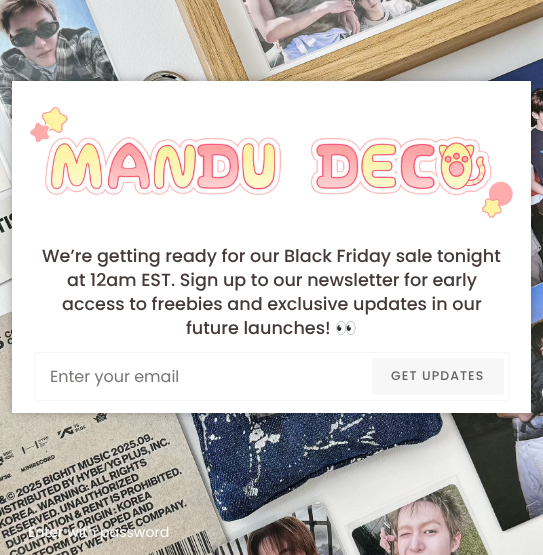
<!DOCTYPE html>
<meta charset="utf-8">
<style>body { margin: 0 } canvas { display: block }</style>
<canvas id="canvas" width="543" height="555"></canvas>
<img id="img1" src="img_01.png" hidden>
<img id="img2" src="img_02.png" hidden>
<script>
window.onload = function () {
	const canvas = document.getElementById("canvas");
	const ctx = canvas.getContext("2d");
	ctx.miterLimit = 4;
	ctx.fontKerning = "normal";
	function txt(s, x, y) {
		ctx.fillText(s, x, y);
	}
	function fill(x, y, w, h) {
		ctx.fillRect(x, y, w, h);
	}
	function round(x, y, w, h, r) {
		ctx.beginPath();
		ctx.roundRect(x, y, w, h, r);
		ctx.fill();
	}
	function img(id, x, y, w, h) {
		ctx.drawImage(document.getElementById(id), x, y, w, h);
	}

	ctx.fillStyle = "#FFFFFF";
	fill(0, 0, 543, 555);
	img("img1", 0, 0, 543, 555);
	ctx.fillStyle = "rgba(0, 0, 0, 0.3)";
	ctx.filter = "blur(5px)";
	ctx.beginPath();
	ctx.rect(12, 81, 519, 332);
	ctx.fill();
	ctx.filter = "none";
	ctx.fillStyle = "#FFFFFF";
	fill(12, 81, 519, 332);
	img("img2", 29, 107, 484, 111);
	ctx.beginPath();
	ctx.roundRect(34.5, 352.5, 475, 48, 2.5);
	ctx.strokeStyle = "#F7F7F7";
	ctx.stroke();
	ctx.fillStyle = "#F7F7F7";
	round(372, 358, 132, 37, 3);
	ctx.font = "500 17.6px Poppins";
	ctx.fillStyle = "#453939";
	txt("We’re getting ready for our Black Friday sale tonight", 42, 262);
	txt("at 12am EST. Sign up to our newsletter for early", 67, 286);
	txt("access to freebies and exclusive updates in our", 62, 310);
	txt("future launches!", 186, 334);
	ctx.font = "17.6px Noto Color Emoji";
	txt("👀", 335, 334);
	ctx.font = "16px Poppins";
	ctx.fillStyle = "#7D7474";
	txt("Enter your email", 50, 382);
	ctx.letterSpacing = "1.1px";
	ctx.font = "500 12.5px Poppins";
	ctx.fillStyle = "#656565";
	txt("GET UPDATES", 391, 380);
	ctx.letterSpacing = "0px";
	ctx.font = "14.1px Poppins";
	ctx.fillStyle = "#FFFFFF";
	txt("Enter with password", 28, 537);
};
</script>
